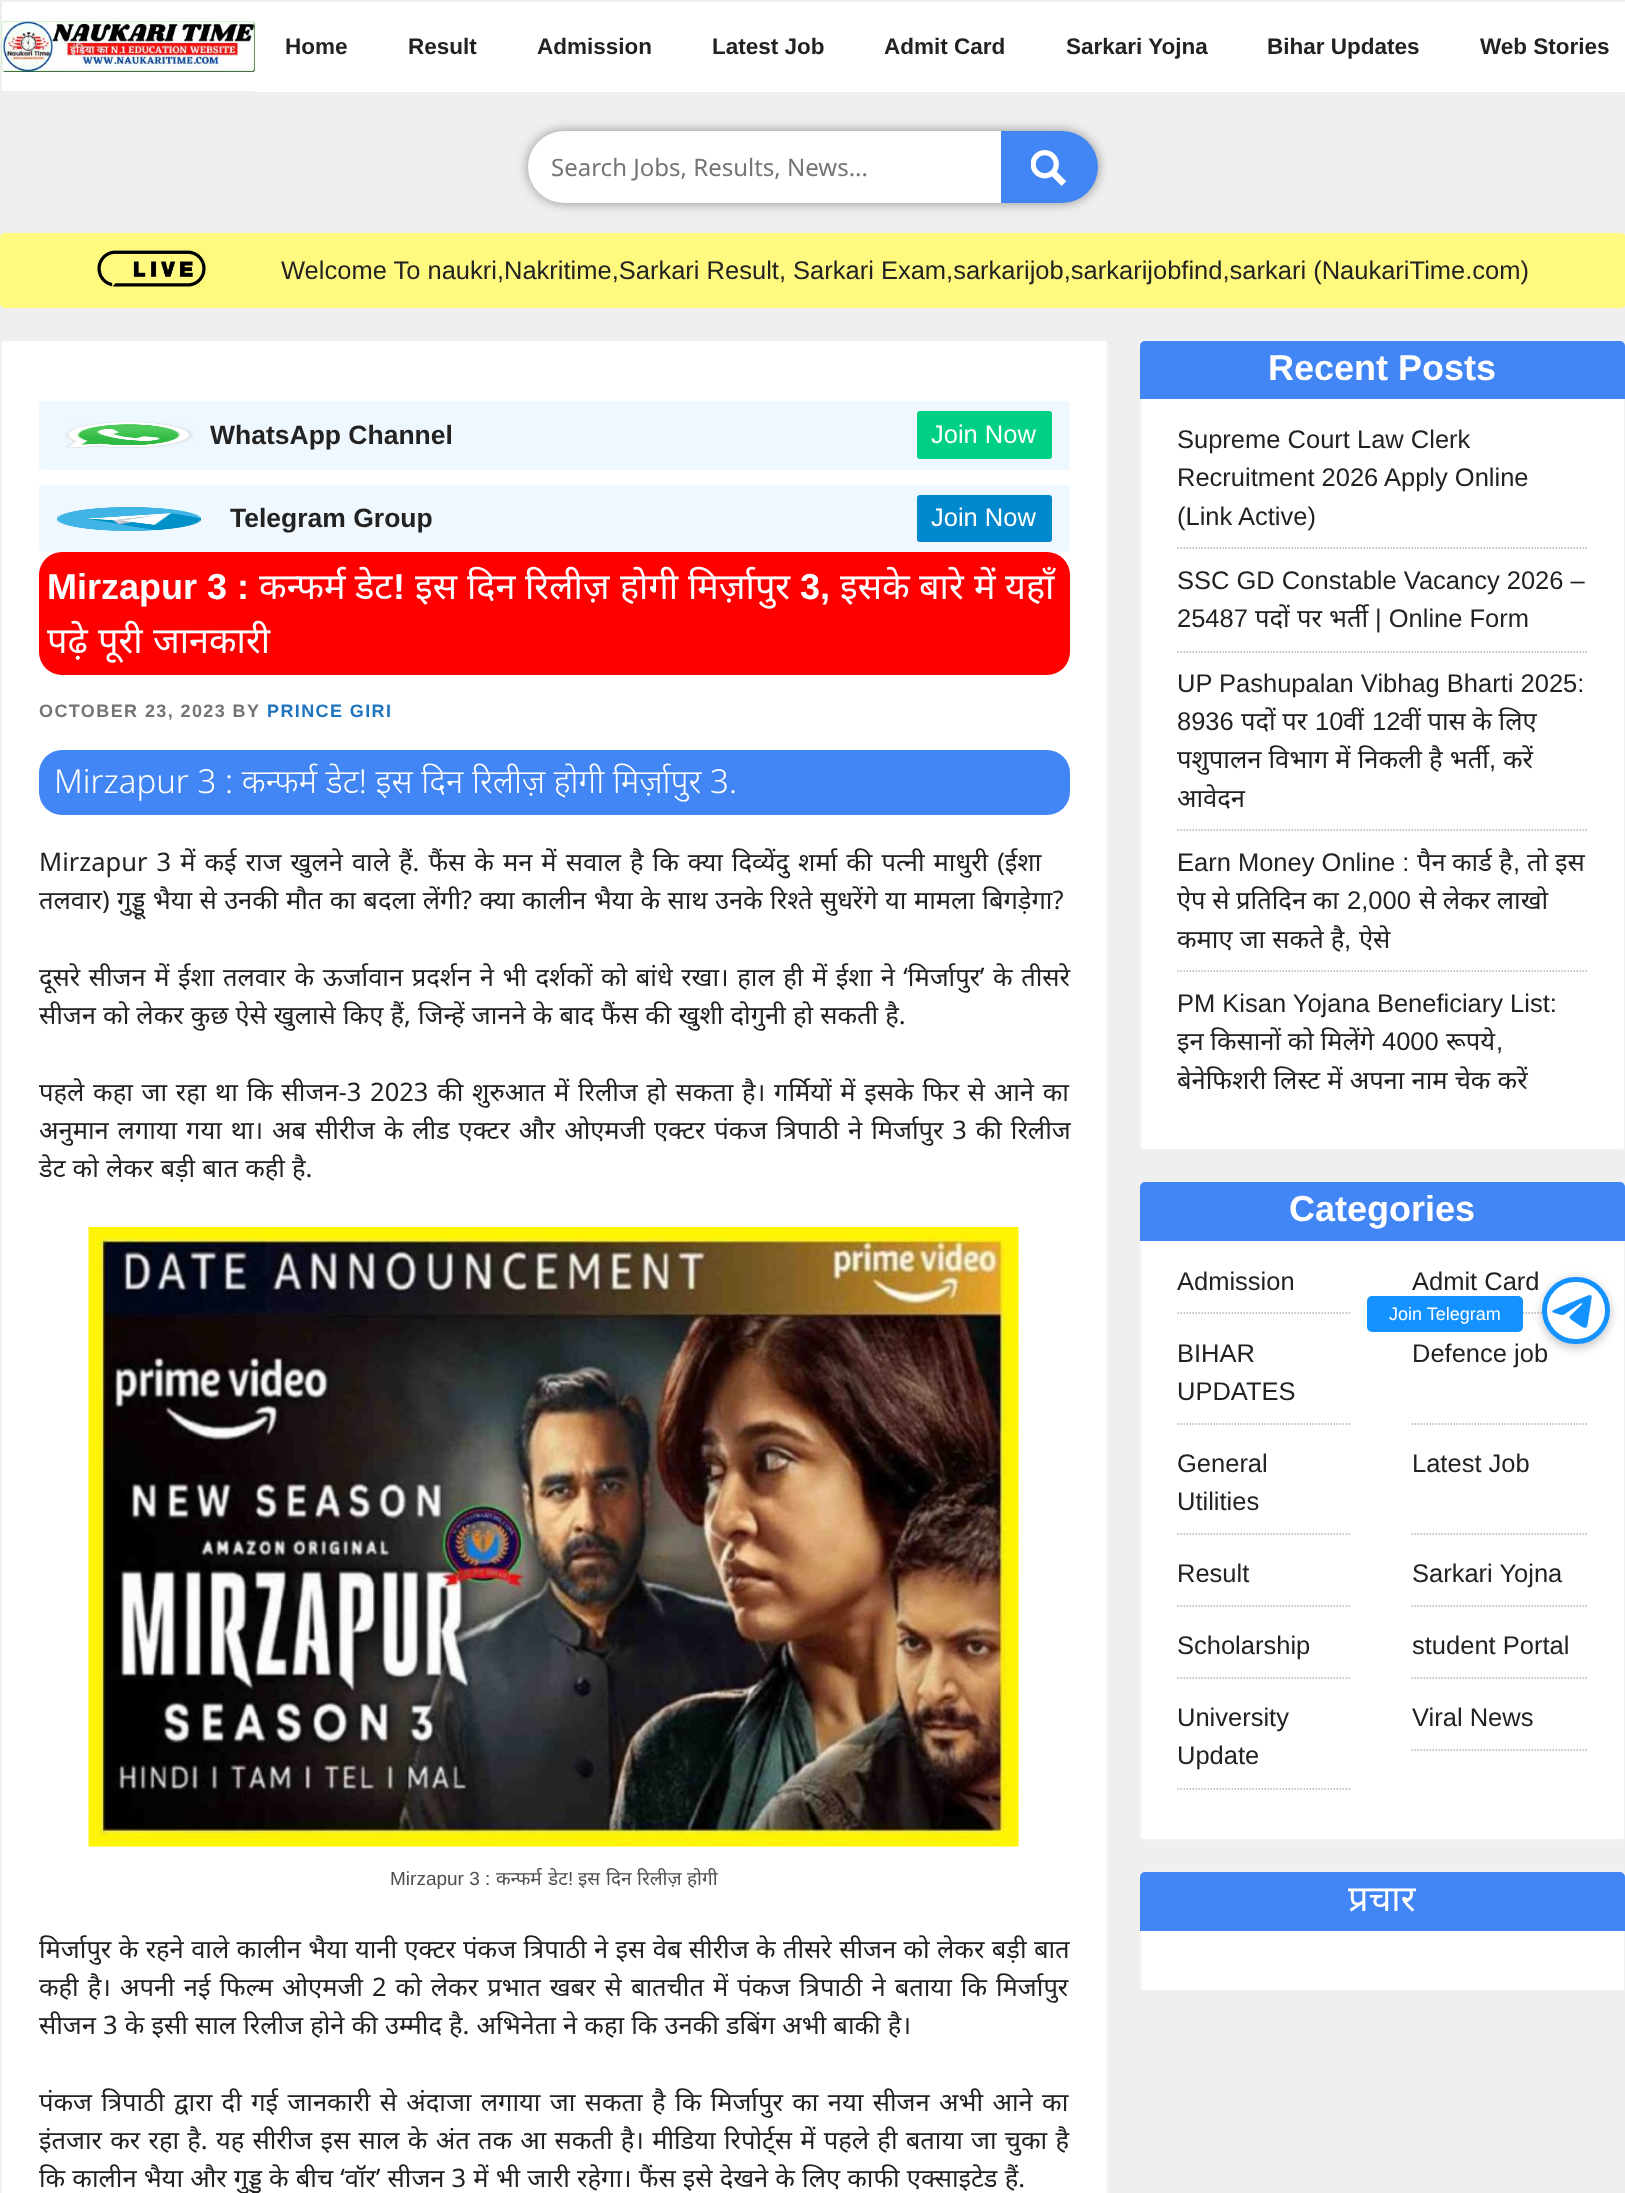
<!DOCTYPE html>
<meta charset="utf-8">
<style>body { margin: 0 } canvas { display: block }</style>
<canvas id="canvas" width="1625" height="2193"></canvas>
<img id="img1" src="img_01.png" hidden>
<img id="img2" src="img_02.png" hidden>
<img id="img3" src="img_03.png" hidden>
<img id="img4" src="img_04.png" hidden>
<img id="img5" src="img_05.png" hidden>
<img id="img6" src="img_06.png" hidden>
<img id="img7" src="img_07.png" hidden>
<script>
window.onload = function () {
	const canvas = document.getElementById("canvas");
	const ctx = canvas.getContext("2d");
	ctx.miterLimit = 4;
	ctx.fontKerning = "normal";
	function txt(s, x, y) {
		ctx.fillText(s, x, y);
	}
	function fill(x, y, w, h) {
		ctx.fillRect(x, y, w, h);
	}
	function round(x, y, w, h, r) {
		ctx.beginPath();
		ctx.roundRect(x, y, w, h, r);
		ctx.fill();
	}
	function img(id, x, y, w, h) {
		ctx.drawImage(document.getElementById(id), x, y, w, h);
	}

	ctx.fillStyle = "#EFEFEF";
	fill(0, 0, 1625, 2193);
	ctx.fillStyle = "#FFFFFF";
	fill(2, 2, 253, 89);
	img("img1", 1, 21, 254, 51);
	fill(255, 2, 1370, 90);
	ctx.fillStyle = "rgba(0, 0, 0, 0.4)";
	ctx.filter = "blur(6px)";
	ctx.beginPath();
	ctx.roundRect(528, 131, 570, 72, 36);
	ctx.fill();
	ctx.filter = "none";
	ctx.fillStyle = "#FFFFFF";
	ctx.beginPath();
	ctx.roundRect(528, 131, 473, 72, [36, 0, 0, 36]);
	ctx.fill();
	ctx.fillStyle = "#4285F4";
	ctx.beginPath();
	ctx.roundRect(1001, 131, 97, 72, [0, 36, 36, 0]);
	ctx.fill();
	img("img2", 1031, 150, 36, 36);
	ctx.fillStyle = "#FFFA7F";
	round(0, 233, 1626, 75, 5);
	img("img3", 97, 250, 109, 37);
	ctx.fillStyle = "#FFFFFF";
	ctx.beginPath();
	ctx.roundRect(1, 340, 1107, 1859, 4);
	ctx.fill();
	ctx.strokeStyle = "#F1F1F1";
	ctx.lineWidth = 2;
	ctx.stroke();
	ctx.fillStyle = "#F0F8FF";
	round(39, 401, 1031, 69, 3);
	img("img4", 65, 421, 129, 27);
	ctx.fillStyle = "#00D084";
	round(917, 411, 135, 48, 3);
	ctx.fillStyle = "#F0F8FF";
	round(39, 485, 1031, 67, 3);
	img("img5", 57, 507, 144, 24);
	ctx.fillStyle = "#0088CC";
	round(917, 495, 135, 47, 3);
	ctx.fillStyle = "#FF0000";
	round(39, 552, 1031, 123, 23);
	ctx.fillStyle = "#4285F4";
	round(39, 750, 1031, 65, 23);
	img("img6", 88, 1227, 931, 620);
	ctx.fillStyle = "#FFFFFF";
	ctx.beginPath();
	ctx.roundRect(1140, 340, 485, 810, 4);
	ctx.fill();
	ctx.stroke();
	ctx.fillStyle = "#4285F4";
	ctx.beginPath();
	ctx.roundRect(1140, 341, 485, 58, [5, 5, 0, 0]);
	ctx.fill();
	ctx.beginPath();
	ctx.moveTo(1177.5, 548);
	ctx.lineTo(1587, 548);
	ctx.strokeStyle = "#B2B2B2";
	ctx.lineWidth = 1.5;
	ctx.setLineDash([1.5, 1.5]);
	ctx.stroke();
	ctx.beginPath();
	ctx.moveTo(1177.5, 652);
	ctx.lineTo(1587, 652);
	ctx.stroke();
	ctx.beginPath();
	ctx.moveTo(1177.5, 830);
	ctx.lineTo(1587, 830);
	ctx.stroke();
	ctx.beginPath();
	ctx.moveTo(1177.5, 971);
	ctx.lineTo(1587, 971);
	ctx.stroke();
	ctx.fillStyle = "#FFFFFF";
	ctx.beginPath();
	ctx.roundRect(1140, 1182, 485, 658, 4);
	ctx.fill();
	ctx.strokeStyle = "#F1F1F1";
	ctx.lineWidth = 2;
	ctx.setLineDash([]);
	ctx.stroke();
	ctx.fillStyle = "#4285F4";
	ctx.beginPath();
	ctx.roundRect(1140, 1182, 485, 59, [5, 5, 0, 0]);
	ctx.fill();
	ctx.beginPath();
	ctx.moveTo(1177.5, 1313);
	ctx.lineTo(1351.5, 1313);
	ctx.strokeStyle = "#B2B2B2";
	ctx.lineWidth = 1.5;
	ctx.setLineDash([1.5, 1.5]);
	ctx.stroke();
	ctx.beginPath();
	ctx.moveTo(1411.5, 1313);
	ctx.lineTo(1587, 1313);
	ctx.stroke();
	ctx.beginPath();
	ctx.moveTo(1177.5, 1424);
	ctx.lineTo(1351.5, 1424);
	ctx.stroke();
	ctx.beginPath();
	ctx.moveTo(1411.5, 1424);
	ctx.lineTo(1587, 1424);
	ctx.stroke();
	ctx.beginPath();
	ctx.moveTo(1177.5, 1534);
	ctx.lineTo(1351.5, 1534);
	ctx.stroke();
	ctx.beginPath();
	ctx.moveTo(1411.5, 1534);
	ctx.lineTo(1587, 1534);
	ctx.stroke();
	ctx.beginPath();
	ctx.moveTo(1177.5, 1606);
	ctx.lineTo(1351.5, 1606);
	ctx.stroke();
	ctx.beginPath();
	ctx.moveTo(1411.5, 1606);
	ctx.lineTo(1587, 1606);
	ctx.stroke();
	ctx.beginPath();
	ctx.moveTo(1177.5, 1678);
	ctx.lineTo(1351.5, 1678);
	ctx.stroke();
	ctx.beginPath();
	ctx.moveTo(1411.5, 1678);
	ctx.lineTo(1587, 1678);
	ctx.stroke();
	ctx.beginPath();
	ctx.moveTo(1177.5, 1789);
	ctx.lineTo(1351.5, 1789);
	ctx.stroke();
	ctx.beginPath();
	ctx.moveTo(1411.5, 1750);
	ctx.lineTo(1587, 1750);
	ctx.stroke();
	ctx.fillStyle = "#FFFFFF";
	ctx.beginPath();
	ctx.roundRect(1140, 1872, 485, 119, 4);
	ctx.fill();
	ctx.strokeStyle = "#F1F1F1";
	ctx.lineWidth = 2;
	ctx.setLineDash([]);
	ctx.stroke();
	ctx.fillStyle = "#4285F4";
	ctx.beginPath();
	ctx.roundRect(1140, 1872, 485, 59, [5, 5, 0, 0]);
	ctx.fill();
	ctx.fillStyle = "rgba(0, 0, 0, 0.2)";
	ctx.filter = "blur(4.5px)";
	ctx.beginPath();
	ctx.roundRect(1541, 1278, 70, 71, 35);
	ctx.fill();
	ctx.filter = "none";
	ctx.fillStyle = "#1492FF";
	round(1367, 1296, 156, 36, 5);
	ctx.font = "bold 22.5px Liberation Sans";
	ctx.fillStyle = "#222222";
	txt("Home", 285, 54);
	txt("Result", 408, 54);
	txt("Admission", 537, 54);
	txt("Latest Job", 712, 54);
	txt("Admit Card", 884, 54);
	txt("Sarkari Yojna", 1066, 54);
	txt("Bihar Updates", 1267, 54);
	txt("Web Stories", 1480, 54);
	ctx.font = "24px Noto Sans";
	ctx.fillStyle = "#757575";
	txt("Search Jobs, Results, News...", 551, 176);
	ctx.font = "25.5px Liberation Sans";
	ctx.fillStyle = "#222222";
	txt("Welcome To naukri,Nakritime,Sarkari Result, Sarkari Exam,sarkarijob,sarkarijobfind,sarkari (NaukariTime.com)", 281, 279);
	ctx.font = "bold 26.5px Liberation Sans";
	txt("WhatsApp Channel", 210, 444);
	ctx.font = "25.5px Liberation Sans";
	ctx.fillStyle = "#FFFFFF";
	txt("Join Now", 931, 443);
	ctx.font = "bold 26.5px Liberation Sans";
	ctx.fillStyle = "#222222";
	txt("Telegram Group", 230, 527);
	ctx.font = "25.5px Liberation Sans";
	ctx.fillStyle = "#FFFFFF";
	txt("Join Now", 931, 526);
	ctx.font = "bold 36px Liberation Sans";
	txt("Mirzapur 3 :", 47, 599);
	ctx.font = "36px Noto Sans";
	txt("कन्फर्म", 259, 599);
	txt("डेट", 355, 599);
	ctx.font = "bold 36px Liberation Sans";
	txt("!", 393, 599);
	ctx.font = "36px Noto Sans";
	txt("इस", 415, 599);
	txt("दिन", 467, 599);
	txt("रिलीज़", 525, 599);
	txt("होगी", 620, 599);
	txt("मिर्ज़ापुर", 688, 599);
	ctx.font = "bold 36px Liberation Sans";
	txt("3,", 800, 599);
	ctx.font = "36px Noto Sans";
	txt("इसके", 840, 599);
	txt("बारे", 919, 599);
	txt("में", 974, 599);
	txt("यहाँ", 1005, 599);
	ctx.wordSpacing = "1px";
	txt("पढ़े पूरी जानकारी", 47, 653);
	ctx.letterSpacing = "1.4px";
	ctx.wordSpacing = "0px";
	ctx.font = "bold 18px Liberation Sans";
	ctx.fillStyle = "#757575";
	txt("OCTOBER 23, 2023 BY", 39, 717);
	ctx.fillStyle = "#1E73BE";
	txt("PRINCE GIRI", 267, 717);
	ctx.letterSpacing = "0px";
	ctx.wordSpacing = "0.1px";
	ctx.font = "300 33px Noto Sans";
	ctx.fillStyle = "#FFFFFF";
	txt("Mirzapur 3 : कन्फर्म डेट! इस दिन रिलीज़ होगी मिर्ज़ापुर 3.", 54, 793);
	ctx.wordSpacing = "2.4px";
	ctx.font = "25.5px Noto Sans";
	ctx.fillStyle = "#222222";
	txt("Mirzapur 3 में कई राज खुलने वाले हैं. फैंस के मन में सवाल है कि क्या दिव्येंदु शर्मा की पत्नी माधुरी (ईशा", 39, 871);
	ctx.wordSpacing = "0.8px";
	txt("तलवार) गुड्डू भैया से उनकी मौत का बदला लेंगी? क्या कालीन भैया के साथ उनके रिश्ते सुधरेंगे या मामला बिगड़ेगा?", 39, 909);
	ctx.wordSpacing = "1.9px";
	txt("दूसरे सीजन में ईशा तलवार के ऊर्जावान प्रदर्शन ने भी दर्शकों को बांधे रखा। हाल ही में ईशा ने ‘मिर्जापुर’ के तीसरे", 39, 986);
	ctx.wordSpacing = "0.5px";
	txt("सीजन को लेकर कुछ ऐसे खुलासे किए हैं, जिन्हें जानने के बाद फैंस की खुशी दोगुनी हो सकती है.", 39, 1024);
	ctx.wordSpacing = "2.1px";
	txt("पहले कहा जा रहा था कि सीजन-3 2023 की शुरुआत में रिलीज हो सकता है। गर्मियों में इसके फिर से आने का", 39, 1101);
	ctx.wordSpacing = "2.25px";
	txt("अनुमान लगाया गया था। अब सीरीज के लीड एक्टर और ओएमजी एक्टर पंकज त्रिपाठी ने मिर्जापुर 3 की रिलीज", 39, 1139);
	ctx.wordSpacing = "0.5px";
	txt("डेट को लेकर बड़ी बात कही है.", 39, 1177);
	ctx.wordSpacing = "0px";
	ctx.font = "19px Liberation Sans";
	ctx.fillStyle = "#4E4E4E";
	txt("Mirzapur 3 :", 390, 1885);
	ctx.font = "19px Noto Sans";
	txt("कन्फर्म", 496, 1885);
	txt("डेट", 548, 1885);
	ctx.font = "19px Liberation Sans";
	txt("!", 568, 1885);
	ctx.font = "19px Noto Sans";
	txt("इस", 578, 1885);
	txt("दिन", 606, 1885);
	txt("रिलीज़", 637, 1885);
	txt("होगी", 687, 1885);
	ctx.wordSpacing = "0.75px";
	ctx.font = "25.5px Noto Sans";
	ctx.fillStyle = "#222222";
	txt("मिर्जापुर के रहने वाले कालीन भैया यानी एक्टर पंकज त्रिपाठी ने इस वेब सीरीज के तीसरे सीजन को लेकर बड़ी बात", 39, 1958);
	ctx.wordSpacing = "2.4px";
	txt("कही है। अपनी नई फिल्म ओएमजी 2 को लेकर प्रभात खबर से बातचीत में पंकज त्रिपाठी ने बताया कि मिर्जापुर", 39, 1996);
	ctx.wordSpacing = "0.5px";
	txt("सीजन 3 के इसी साल रिलीज होने की उम्मीद है. अभिनेता ने कहा कि उनकी डबिंग अभी बाकी है।", 39, 2034);
	ctx.wordSpacing = "2.75px";
	txt("पंकज त्रिपाठी द्वारा दी गई जानकारी से अंदाजा लगाया जा सकता है कि मिर्जापुर का नया सीजन अभी आने का", 39, 2111);
	ctx.wordSpacing = "1.6px";
	txt("इंतजार कर रहा है. यह सीरीज इस साल के अंत तक आ सकती है। मीडिया रिपोर्ट्स में पहले ही बताया जा चुका है", 39, 2149);
	ctx.wordSpacing = "0.5px";
	txt("कि कालीन भैया और गुड्डू के बीच ‘वॉर’ सीजन 3 में भी जारी रहेगा। फैंस इसे देखने के लिए काफी एक्साइटेड हैं.", 39, 2187);
	ctx.wordSpacing = "0px";
	ctx.font = "bold 36px Liberation Sans";
	ctx.fillStyle = "#FFFFFF";
	txt("Recent Posts", 1268, 380);
	ctx.font = "25.5px Liberation Sans";
	ctx.fillStyle = "#222222";
	txt("Supreme Court Law Clerk", 1177, 448);
	txt("Recruitment 2026 Apply Online", 1177, 486);
	txt("(Link Active)", 1177, 525);
	txt("SSC GD Constable Vacancy 2026 –", 1177, 589);
	txt("25487", 1177, 627);
	ctx.font = "25.5px Noto Sans";
	txt("पदों", 1255, 627);
	txt("पर", 1297, 627);
	txt("भर्ती", 1329, 627);
	ctx.font = "25.5px Liberation Sans";
	txt("| Online Form", 1375, 627);
	txt("UP Pashupalan Vibhag Bharti 2025:", 1177, 692);
	txt("8936", 1177, 730);
	ctx.font = "25.5px Noto Sans";
	txt("पदों पर", 1241, 730);
	ctx.font = "25.5px Liberation Sans";
	txt("10", 1315, 730);
	ctx.font = "25.5px Noto Sans";
	txt("वीं", 1343, 730);
	ctx.font = "25.5px Liberation Sans";
	txt("12", 1372, 730);
	ctx.font = "25.5px Noto Sans";
	txt("वीं पास के लिए", 1400, 730);
	ctx.wordSpacing = "0.5px";
	txt("पशुपालन विभाग में निकली है भर्ती", 1177, 768);
	ctx.wordSpacing = "0px";
	ctx.font = "25.5px Liberation Sans";
	txt(",", 1489, 768);
	ctx.font = "25.5px Noto Sans";
	txt("करें", 1503, 768);
	txt("आवेदन", 1177, 807);
	ctx.font = "25.5px Liberation Sans";
	txt("Earn Money Online :", 1177, 871);
	ctx.font = "25.5px Noto Sans";
	txt("पैन", 1417, 871);
	txt("कार्ड", 1452, 871);
	txt("है", 1499, 871);
	ctx.font = "25.5px Liberation Sans";
	txt(",", 1513, 871);
	ctx.font = "25.5px Noto Sans";
	txt("तो", 1527, 871);
	txt("इस", 1555, 871);
	txt("ऐप से प्रतिदिन का", 1177, 909);
	ctx.font = "25.5px Liberation Sans";
	txt("2,000", 1347, 909);
	ctx.font = "25.5px Noto Sans";
	txt("से लेकर लाखो", 1419, 909);
	ctx.wordSpacing = "0.5px";
	txt("कमाए जा सकते है", 1177, 948);
	ctx.wordSpacing = "0px";
	ctx.font = "25.5px Liberation Sans";
	txt(",", 1344, 948);
	ctx.font = "25.5px Noto Sans";
	txt("ऐसे", 1359, 948);
	ctx.font = "25.5px Liberation Sans";
	txt("PM Kisan Yojana Beneficiary List:", 1177, 1012);
	ctx.font = "25.5px Noto Sans";
	txt("इन किसानों को मिलेंगे", 1177, 1050);
	ctx.font = "25.5px Liberation Sans";
	txt("4000", 1382, 1050);
	ctx.font = "25.5px Noto Sans";
	txt("रूपये", 1446, 1050);
	ctx.font = "25.5px Liberation Sans";
	txt(",", 1496, 1050);
	ctx.wordSpacing = "0.5px";
	ctx.font = "25.5px Noto Sans";
	txt("बेनेफिशरी लिस्ट में अपना नाम चेक करें", 1177, 1089);
	ctx.wordSpacing = "0px";
	ctx.font = "bold 36px Liberation Sans";
	ctx.fillStyle = "#FFFFFF";
	txt("Categories", 1289, 1221);
	ctx.font = "25.5px Liberation Sans";
	ctx.fillStyle = "#222222";
	txt("Admission", 1177, 1290);
	txt("Admit Card", 1412, 1290);
	txt("BIHAR", 1177, 1362);
	txt("UPDATES", 1177, 1400);
	txt("Defence job", 1412, 1362);
	txt("General", 1177, 1472);
	txt("Utilities", 1177, 1510);
	txt("Latest Job", 1412, 1472);
	txt("Result", 1177, 1582);
	txt("Sarkari Yojna", 1412, 1582);
	txt("Scholarship", 1177, 1654);
	txt("student Portal", 1412, 1654);
	txt("University", 1177, 1726);
	txt("Update", 1177, 1764);
	txt("Viral News", 1412, 1726);
	ctx.font = "36px Noto Sans";
	ctx.fillStyle = "#FFFFFF";
	txt("प्रचार", 1348, 1911);
	ctx.beginPath();
	ctx.roundRect(1544.5, 1279.5, 63, 62, 31);
	ctx.fill();
	ctx.strokeStyle = "#1492FF";
	ctx.lineWidth = 5;
	ctx.stroke();
	ctx.font = "18px Liberation Sans";
	txt("Join Telegram", 1389, 1320);
	img("img7", 1552, 1295, 40, 33);
};
</script>
